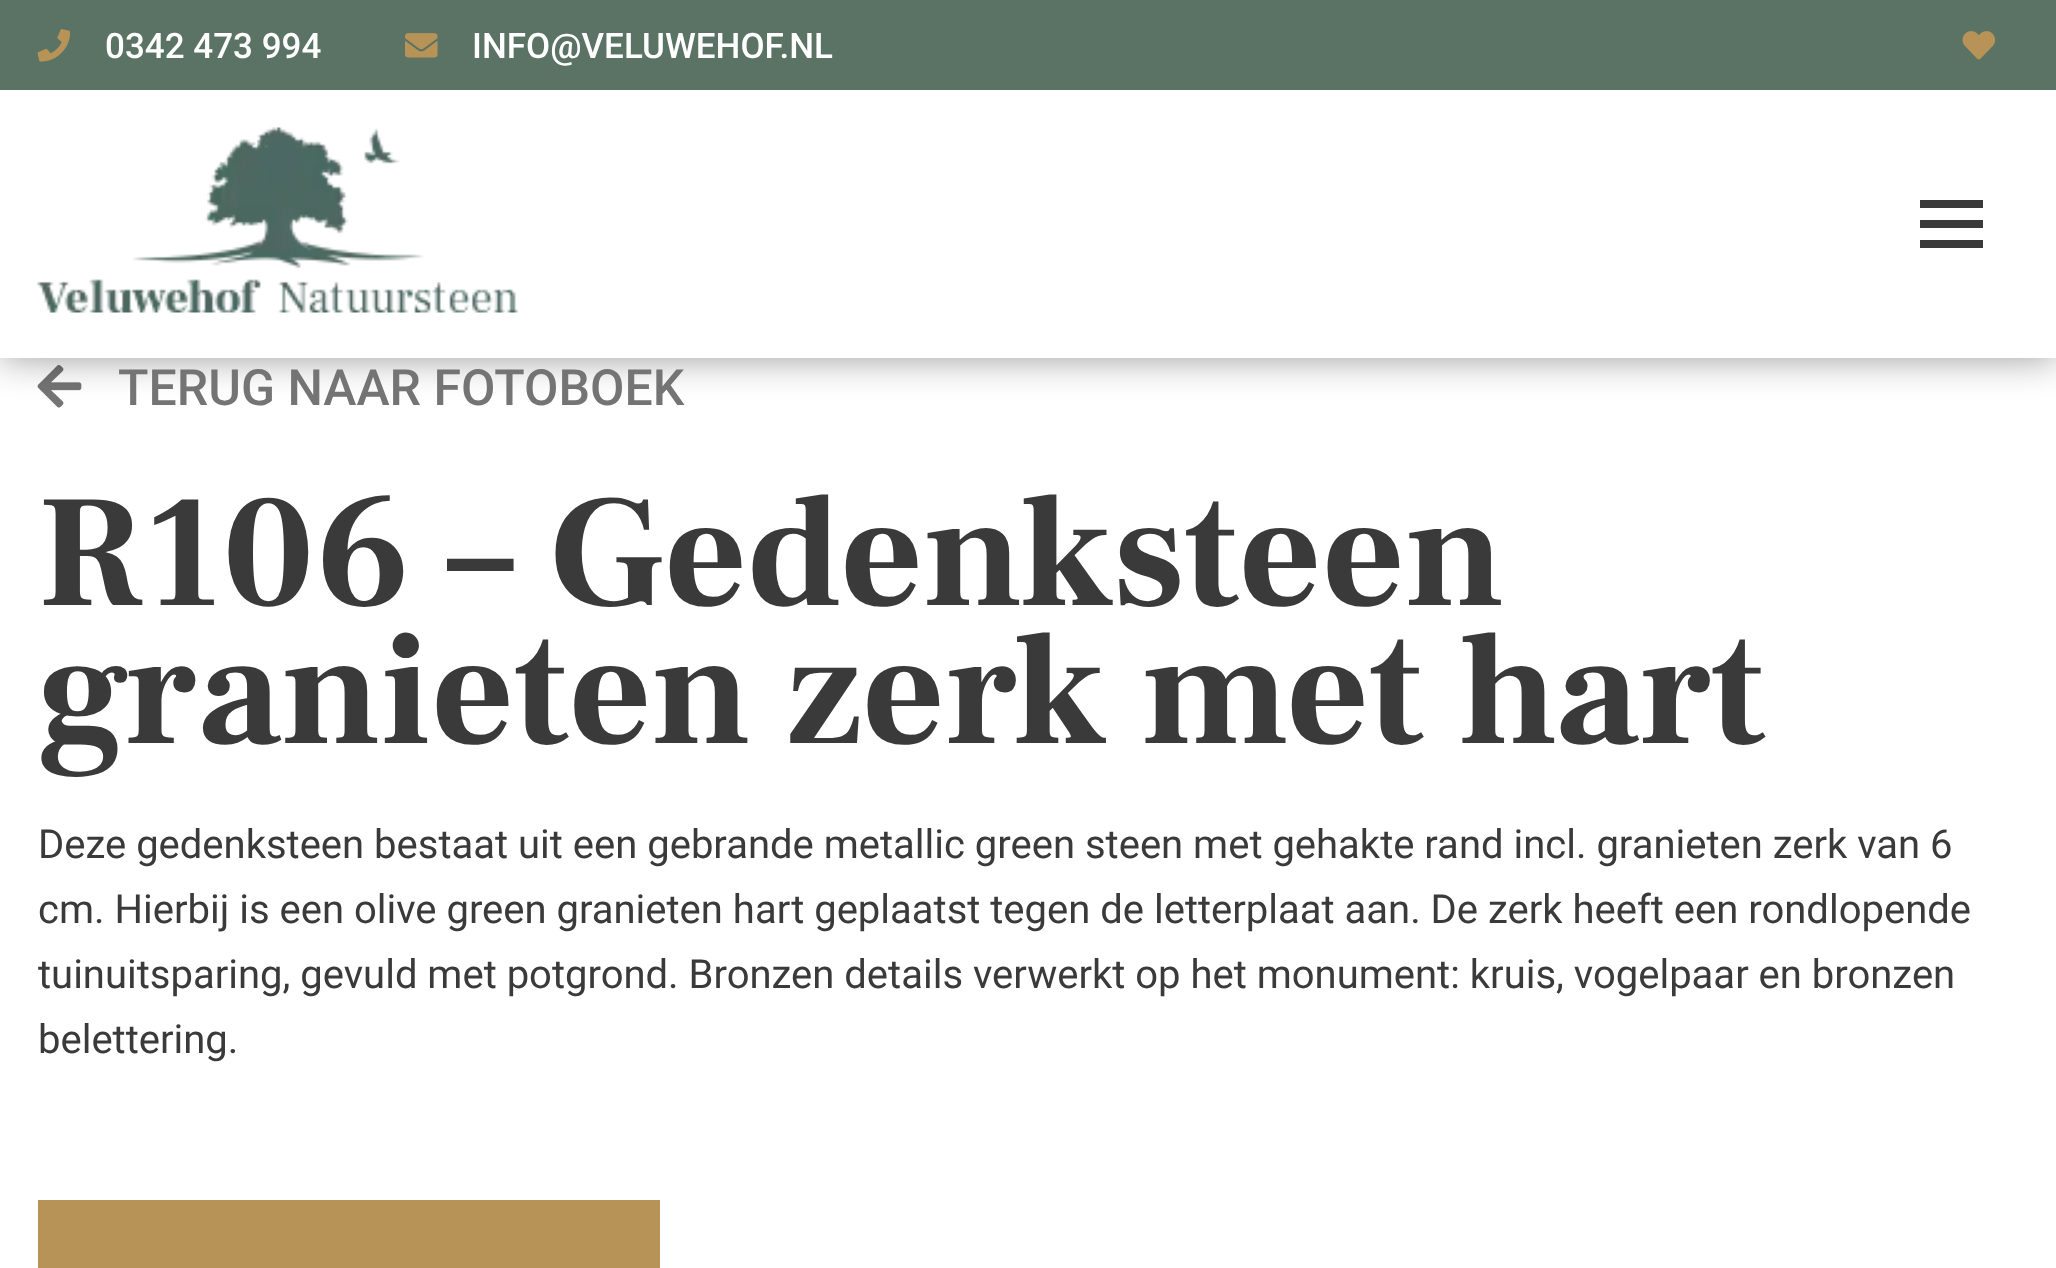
<!DOCTYPE html>
<meta charset="utf-8">
<style>body { margin: 0 } canvas { display: block }</style>
<canvas id="canvas" width="2056" height="1268"></canvas>
<img id="img1" src="img_05.png" hidden>
<img id="img2" src="img_01.png" hidden>
<img id="img3" src="img_02.png" hidden>
<img id="img4" src="img_03.png" hidden>
<img id="img5" src="img_04.png" hidden>
<script>
window.onload = function () {
	const canvas = document.getElementById("canvas");
	const ctx = canvas.getContext("2d");
	ctx.miterLimit = 4;
	ctx.fontKerning = "normal";
	function txt(s, x, y) {
		ctx.fillText(s, x, y);
	}
	function fill(x, y, w, h) {
		ctx.fillRect(x, y, w, h);
	}
	function img(id, x, y, w, h) {
		ctx.drawImage(document.getElementById(id), x, y, w, h);
	}

	ctx.fillStyle = "#FFFFFF";
	fill(0, 0, 2056, 1268);
	img("img1", 37, 365, 45, 43);
	ctx.fillStyle = "rgba(0, 0, 0, 0.4)";
	ctx.filter = "blur(19px)";
	ctx.beginPath();
	ctx.rect(0, 90, 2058, 268);
	ctx.fill();
	ctx.filter = "none";
	ctx.fillStyle = "#FFFFFF";
	fill(0, 90, 2056, 268);
	img("img2", 37, 127, 481, 186);
	ctx.fillStyle = "#3A3A3A";
	fill(1920, 200, 63, 8);
	fill(1920, 220, 63, 8);
	fill(1920, 240, 63, 8);
	ctx.fillStyle = "#5A7364";
	fill(0, 0, 2056, 90);
	img("img3", 37, 29, 34, 33);
	img("img4", 405, 33, 33, 25);
	img("img5", 1962, 31, 33, 29);
	ctx.fillStyle = "#B79357";
	fill(38, 1200, 622, 68);
	ctx.font = "500 35px Roboto";
	ctx.fillStyle = "#FFFFFF";
	txt("0342 473 994", 105, 58);
	txt("INFO@VELUWEHOF.NL", 472, 58);
	ctx.font = "500 50px Roboto";
	ctx.fillStyle = "#747474";
	txt("TERUG NAAR FOTOBOEK", 118, 405);
	ctx.font = "bold 160px Frank Ruhl Libre";
	ctx.fillStyle = "#3A3A3A";
	txt("R106 – Gedenksteen", 38, 605);
	txt("granieten zerk met hart", 38, 743);
	ctx.font = "40px Roboto";
	txt("Deze gedenksteen bestaat uit een gebrande metallic green steen met gehakte rand incl. granieten zerk van 6", 38, 858);
	txt("cm. Hierbij is een olive green granieten hart geplaatst tegen de letterplaat aan. De zerk heeft een rondlopende", 38, 923);
	txt("tuinuitsparing, gevuld met potgrond. Bronzen details verwerkt op het monument: kruis, vogelpaar en bronzen", 38, 988);
	txt("belettering.", 38, 1053);
};
</script>
